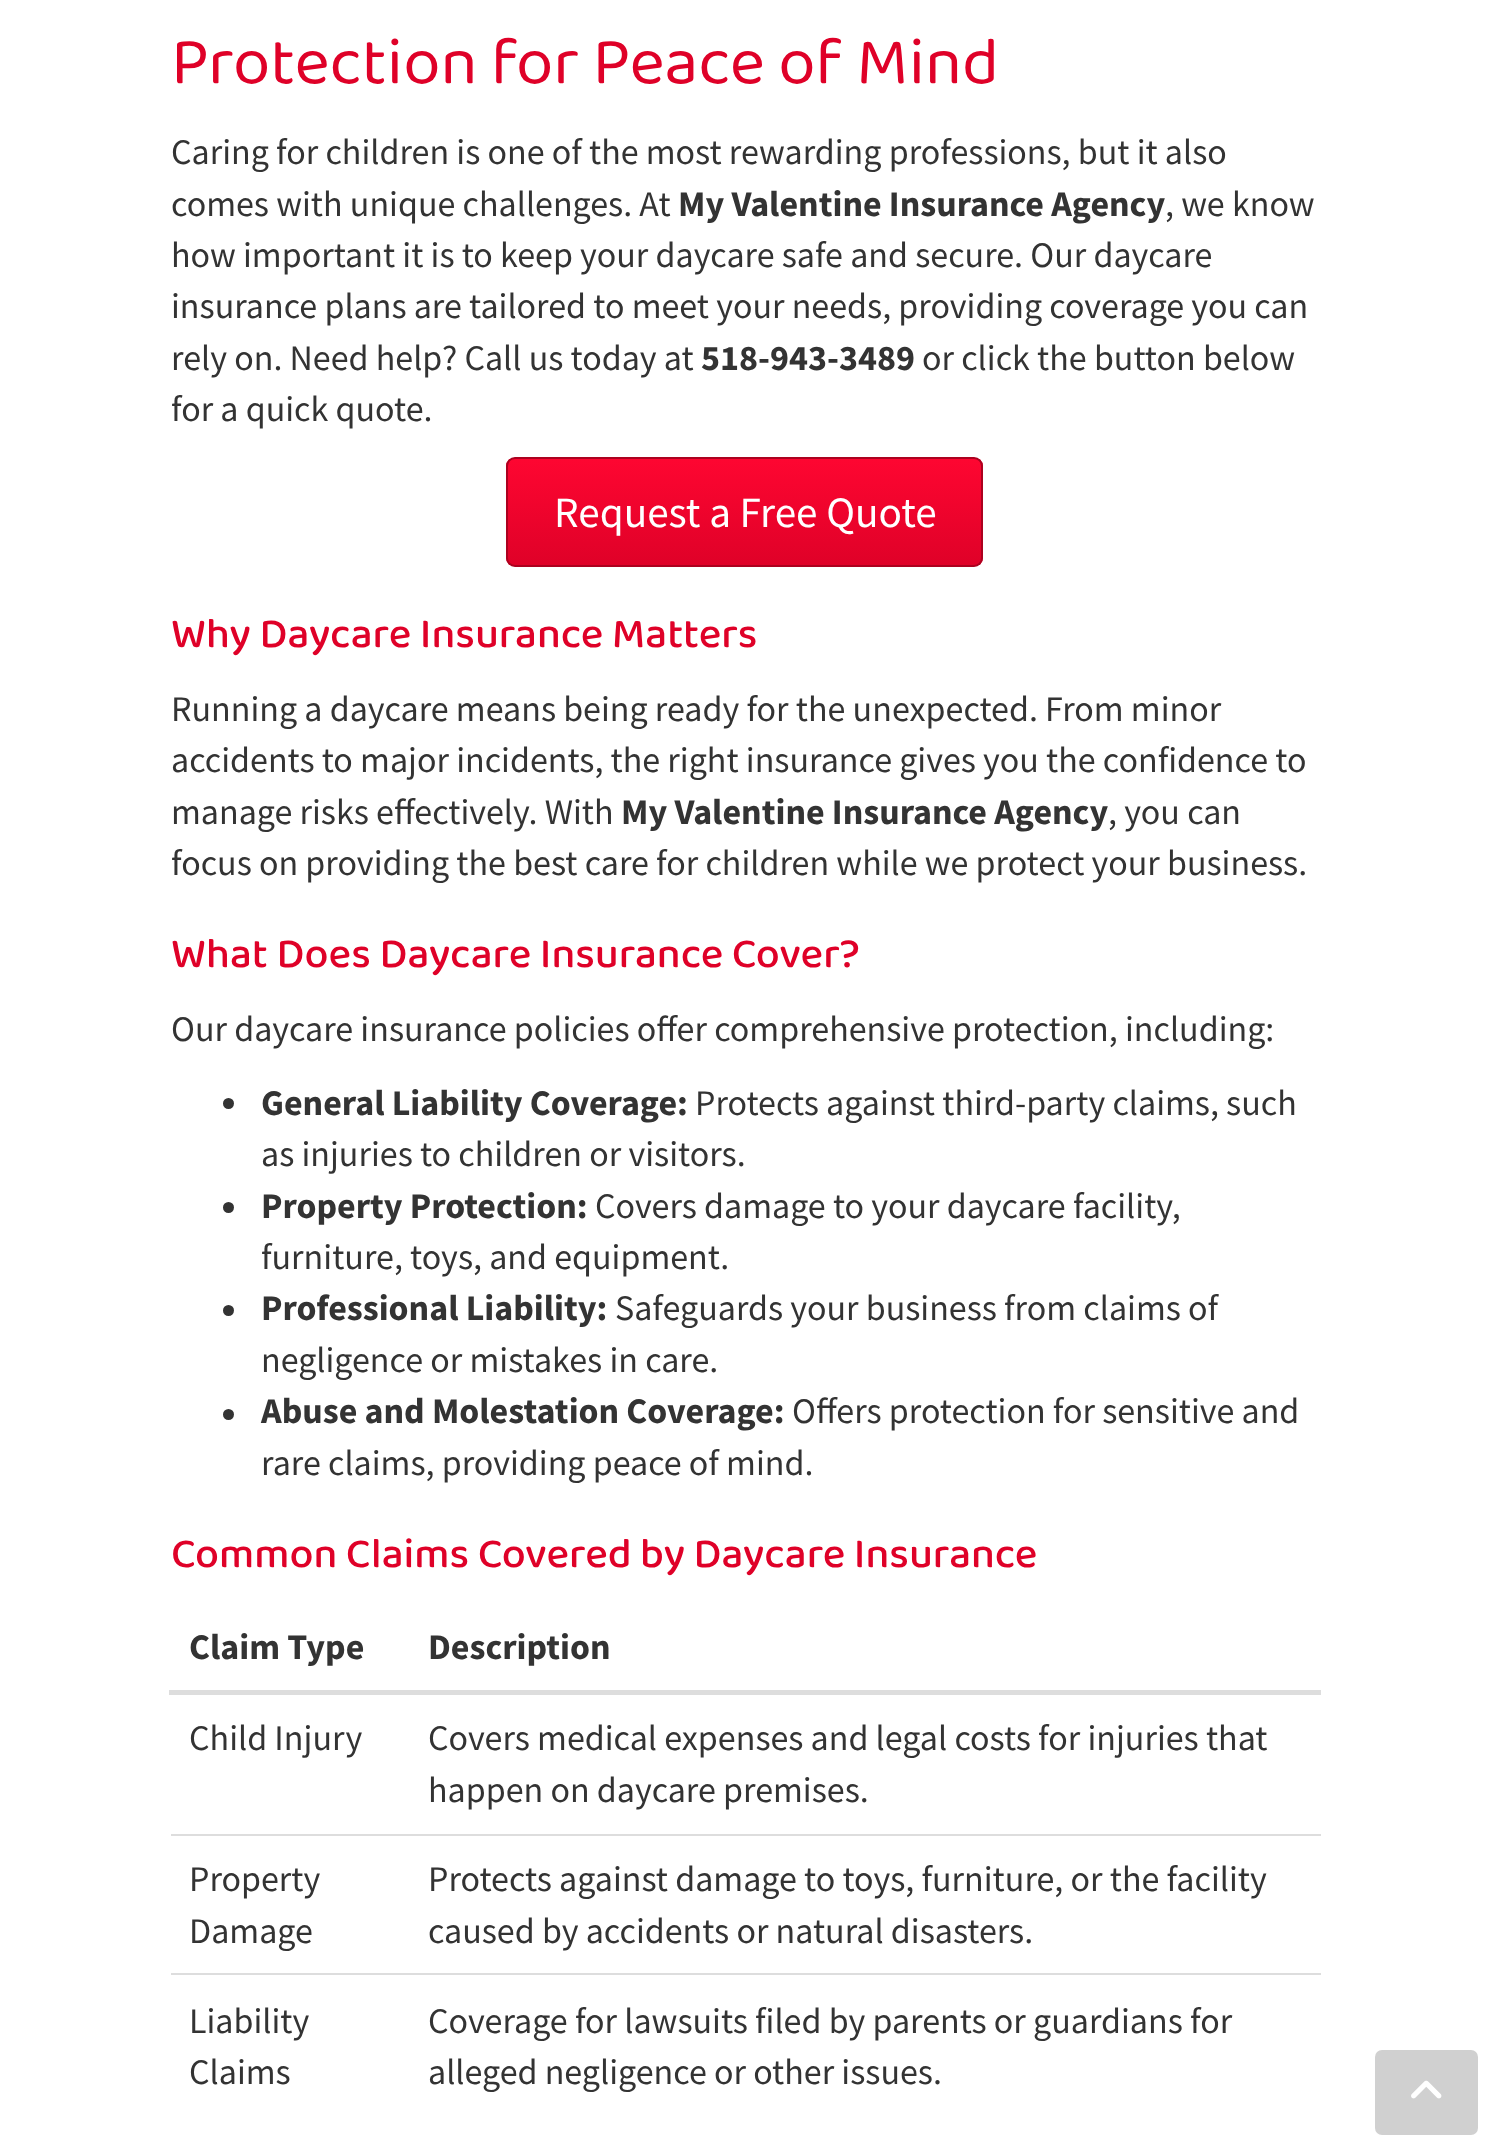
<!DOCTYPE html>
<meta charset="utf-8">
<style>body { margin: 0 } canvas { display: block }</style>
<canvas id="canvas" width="1489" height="2146"></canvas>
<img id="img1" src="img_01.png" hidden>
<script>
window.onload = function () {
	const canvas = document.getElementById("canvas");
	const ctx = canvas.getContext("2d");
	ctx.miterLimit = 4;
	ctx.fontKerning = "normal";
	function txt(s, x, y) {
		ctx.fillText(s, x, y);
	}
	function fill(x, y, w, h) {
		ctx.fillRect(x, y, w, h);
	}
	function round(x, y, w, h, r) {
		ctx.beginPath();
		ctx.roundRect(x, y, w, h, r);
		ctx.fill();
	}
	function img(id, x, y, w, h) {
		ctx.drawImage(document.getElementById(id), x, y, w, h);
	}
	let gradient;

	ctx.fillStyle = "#FFFFFF";
	fill(0, 0, 1489, 2146);
	ctx.save();
	ctx.beginPath();
	ctx.roundRect(506, 457, 477, 110, 9);
	ctx.clip();
	gradient = ctx.createLinearGradient(745, 459, 745, 565);
	gradient.addColorStop(0, "#FE0631");
	gradient.addColorStop(1, "#DF0128");
	ctx.fillStyle = gradient;
	fill(506, 459, 477, 106);
	ctx.restore();
	ctx.beginPath();
	ctx.roundRect(507, 458, 475, 108, 8);
	ctx.strokeStyle = "#AC011F";
	ctx.lineWidth = 2;
	ctx.stroke();
	ctx.fillStyle = "#333333";
	ctx.beginPath();
	ctx.arc(228.5, 1103.5, 5.5, 0, Math.PI * 2);
	ctx.fill();
	ctx.beginPath();
	ctx.arc(228.5, 1207.5, 5.5, 0, Math.PI * 2);
	ctx.fill();
	ctx.beginPath();
	ctx.arc(228.5, 1310.5, 5.5, 0, Math.PI * 2);
	ctx.fill();
	ctx.beginPath();
	ctx.arc(228.5, 1414.5, 5.5, 0, Math.PI * 2);
	ctx.fill();
	ctx.fillStyle = "#DDDDDD";
	fill(169, 1690, 1152, 5);
	fill(171, 1834, 1150, 2);
	fill(171, 1973, 1150, 2);
	ctx.fillStyle = "#D0D0D0";
	round(1375, 2050, 103, 85, 7);
	img("img1", 1411, 2080, 31, 19);
	ctx.font = "67.5px 'Baloo 2'";
	ctx.fillStyle = "#DF0128";
	txt("Protection for Peace of Mind", 171, 83);
	ctx.font = "36px Source Sans Pro";
	ctx.fillStyle = "#333333";
	txt("Caring for children is one of the most rewarding professions, but it also", 171, 164);
	txt("comes with unique challenges. At", 171, 216);
	ctx.font = "bold 36px Source Sans Pro";
	txt("My Valentine Insurance Agency", 678, 216);
	ctx.font = "36px Source Sans Pro";
	txt(", we know", 1165, 216);
	txt("how important it is to keep your daycare safe and secure. Our daycare", 171, 267);
	txt("insurance plans are tailored to meet your needs, providing coverage you can", 171, 318);
	txt("rely on. Need help? Call us today at", 171, 370);
	ctx.font = "bold 36px Source Sans Pro";
	txt("518-943-3489", 701, 370);
	ctx.font = "36px Source Sans Pro";
	txt("or click the button below", 922, 370);
	txt("for a quick quote.", 171, 421);
	ctx.font = "43.25px Source Sans Pro";
	ctx.fillStyle = "#FFFFFF";
	txt("Request a Free Quote", 554, 527);
	ctx.font = "500 42.75px 'Baloo 2'";
	ctx.fillStyle = "#DF0128";
	txt("Why Daycare Insurance Matters", 171, 647);
	ctx.font = "36px Source Sans Pro";
	ctx.fillStyle = "#333333";
	txt("Running a daycare means being ready for the unexpected. From minor", 171, 721);
	txt("accidents to major incidents, the right insurance gives you the confidence to", 171, 772);
	txt("manage risks effectively. With", 171, 824);
	ctx.font = "bold 36px Source Sans Pro";
	txt("My Valentine Insurance Agency", 621, 824);
	ctx.font = "36px Source Sans Pro";
	txt(", you can", 1108, 824);
	txt("focus on providing the best care for children while we protect your business.", 171, 875);
	ctx.font = "500 42.75px 'Baloo 2'";
	ctx.fillStyle = "#DF0128";
	txt("What Does Daycare Insurance Cover?", 171, 967);
	ctx.font = "36px Source Sans Pro";
	ctx.fillStyle = "#333333";
	txt("Our daycare insurance policies offer comprehensive protection, including:", 171, 1041);
	ctx.font = "bold 36px Source Sans Pro";
	txt("General Liability Coverage:", 261, 1115);
	ctx.font = "36px Source Sans Pro";
	txt("Protects against third-party claims, such", 695, 1115);
	txt("as injuries to children or visitors.", 261, 1166);
	ctx.font = "bold 36px Source Sans Pro";
	txt("Property Protection:", 261, 1218);
	ctx.font = "36px Source Sans Pro";
	txt("Covers damage to your daycare facility,", 595, 1218);
	txt("furniture, toys, and equipment.", 261, 1269);
	ctx.font = "bold 36px Source Sans Pro";
	txt("Professional Liability:", 261, 1320);
	ctx.font = "36px Source Sans Pro";
	txt("Safeguards your business from claims of", 615, 1320);
	txt("negligence or mistakes in care.", 261, 1372);
	ctx.font = "bold 36px Source Sans Pro";
	txt("Abuse and Molestation Coverage:", 261, 1423);
	ctx.font = "36px Source Sans Pro";
	txt("Offers protection for sensitive and", 792, 1423);
	txt("rare claims, providing peace of mind.", 261, 1475);
	ctx.font = "500 42.75px 'Baloo 2'";
	ctx.fillStyle = "#DF0128";
	txt("Common Claims Covered by Daycare Insurance", 171, 1567);
	ctx.font = "bold 36px Source Sans Pro";
	ctx.fillStyle = "#333333";
	txt("Claim Type", 189, 1659);
	txt("Description", 428, 1659);
	ctx.font = "36px Source Sans Pro";
	txt("Child Injury", 189, 1750);
	txt("Covers medical expenses and legal costs for injuries that", 428, 1750);
	txt("happen on daycare premises.", 428, 1802);
	txt("Property", 189, 1891);
	txt("Damage", 189, 1943);
	txt("Protects against damage to toys, furniture, or the facility", 428, 1891);
	txt("caused by accidents or natural disasters.", 428, 1943);
	txt("Liability", 189, 2033);
	txt("Claims", 189, 2084);
	txt("Coverage for lawsuits filed by parents or guardians for", 428, 2033);
	txt("alleged negligence or other issues.", 428, 2084);
};
</script>
